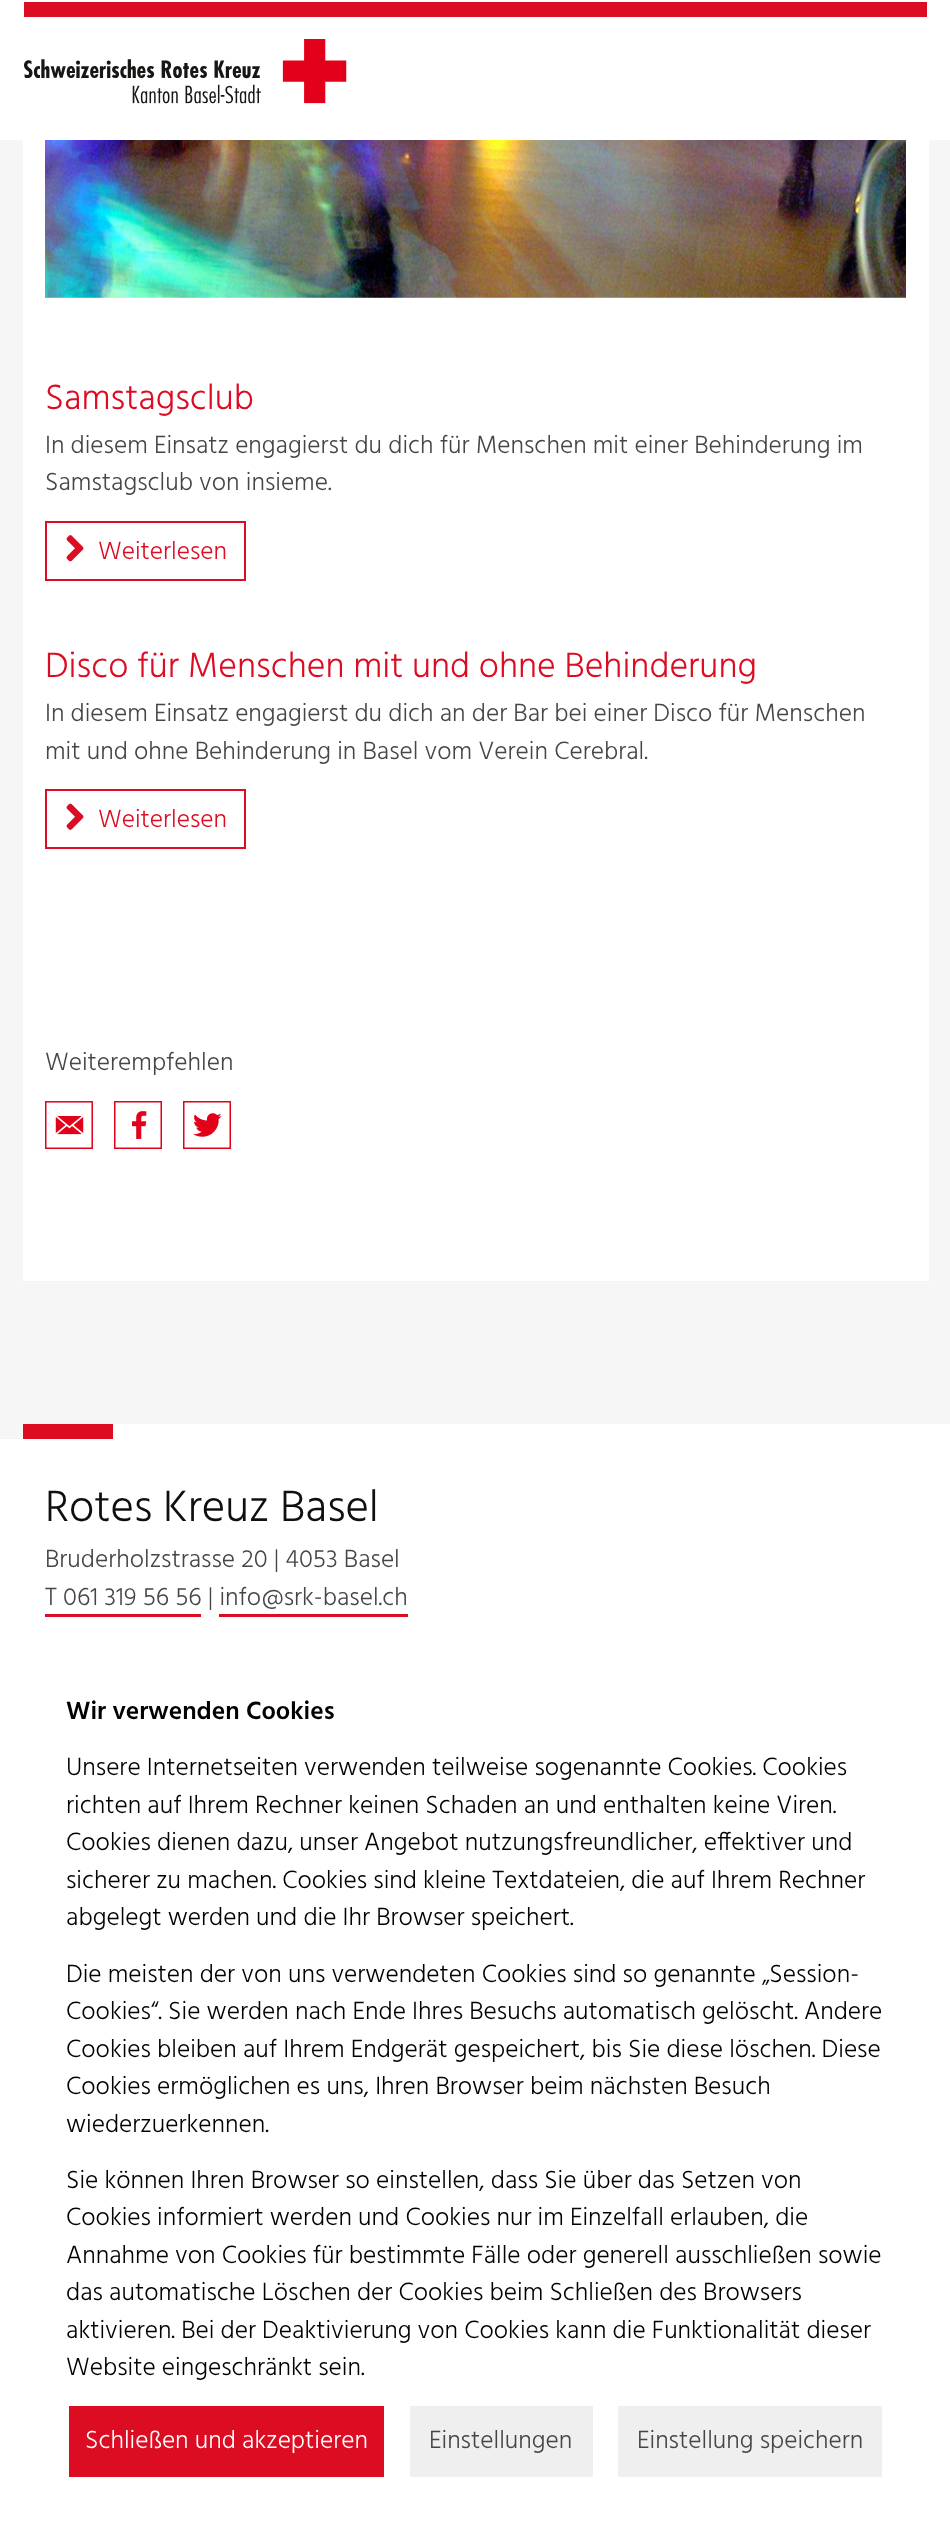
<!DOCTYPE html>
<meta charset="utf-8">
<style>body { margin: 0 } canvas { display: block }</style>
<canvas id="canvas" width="950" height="2535"></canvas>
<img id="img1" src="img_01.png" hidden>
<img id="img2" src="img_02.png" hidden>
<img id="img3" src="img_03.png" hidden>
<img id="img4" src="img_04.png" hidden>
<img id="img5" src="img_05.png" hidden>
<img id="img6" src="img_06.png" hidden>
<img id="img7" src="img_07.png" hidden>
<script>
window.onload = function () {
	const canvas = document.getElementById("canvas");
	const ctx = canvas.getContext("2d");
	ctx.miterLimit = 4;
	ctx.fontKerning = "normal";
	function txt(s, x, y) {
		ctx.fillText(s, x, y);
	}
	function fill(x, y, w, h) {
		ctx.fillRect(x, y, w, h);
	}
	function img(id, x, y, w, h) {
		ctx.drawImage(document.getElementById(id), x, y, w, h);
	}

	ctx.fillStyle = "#F6F6F6";
	fill(0, 0, 950, 2535);
	ctx.fillStyle = "#FFFFFF";
	fill(0, 0, 950, 140);
	ctx.fillStyle = "#DC0C22";
	fill(24, 2, 903, 15);
	img("img1", 24, 39, 323, 65);
	ctx.fillStyle = "#FFFFFF";
	fill(23, 140, 906, 1141);
	img("img2", 45, 140, 861, 158);
	ctx.strokeStyle = "#DC0C22";
	ctx.lineWidth = 2;
	ctx.strokeRect(46, 522, 199, 58);
	img("img3", 66, 535, 18, 27);
	ctx.strokeRect(46, 790, 199, 58);
	img("img4", 66, 803, 18, 27);
	img("img5", 45, 1101, 48, 48);
	img("img6", 114, 1101, 48, 48);
	img("img7", 183, 1101, 48, 48);
	fill(0, 1424, 950, 1111);
	ctx.fillStyle = "#F6F6F6";
	fill(0, 1424, 23, 15);
	ctx.fillStyle = "#DC0C22";
	fill(23, 1424, 90, 15);
	fill(45, 1614, 156, 3);
	fill(219, 1614, 189, 3);
	fill(69, 2406, 315, 71);
	ctx.fillStyle = "#EFEFEF";
	fill(410, 2406, 183, 71);
	fill(618, 2406, 264, 71);
	ctx.font = "300 36px Hind";
	ctx.fillStyle = "#DC0C22";
	txt("Samstagsclub", 45, 409);
	ctx.font = "300 25.5px Hind";
	ctx.fillStyle = "#464646";
	txt("In diesem Einsatz engagierst du dich für Menschen mit einer Behinderung im", 45, 453);
	txt("Samstagsclub von insieme.", 45, 490);
	ctx.fillStyle = "#DC0C22";
	txt("Weiterlesen", 98, 559);
	ctx.font = "300 36px Hind";
	txt("Disco für Menschen mit und ohne Behinderung", 45, 677);
	ctx.font = "300 25.5px Hind";
	ctx.fillStyle = "#464646";
	txt("In diesem Einsatz engagierst du dich an der Bar bei einer Disco für Menschen", 45, 721);
	txt("mit und ohne Behinderung in Basel vom Verein Cerebral.", 45, 759);
	ctx.fillStyle = "#DC0C22";
	txt("Weiterlesen", 98, 827);
	ctx.fillStyle = "#464646";
	txt("Weiterempfehlen", 45, 1070);
	ctx.font = "300 45px Hind";
	ctx.fillStyle = "#0F0F0F";
	txt("Rotes Kreuz Basel", 45, 1521);
	ctx.font = "300 25.5px Hind";
	ctx.fillStyle = "#464646";
	txt("Bruderholzstrasse 20 | 4053 Basel", 45, 1567);
	txt("T 061 319 56 56 | info@srk-basel.ch", 45, 1605);
	ctx.font = "600 25.5px Hind";
	ctx.fillStyle = "#000000";
	txt("Wir verwenden Cookies", 66, 1719);
	ctx.font = "300 25.5px Hind";
	txt("Unsere Internetseiten verwenden teilweise sogenannte Cookies. Cookies", 66, 1775);
	txt("richten auf Ihrem Rechner keinen Schaden an und enthalten keine Viren.", 66, 1813);
	txt("Cookies dienen dazu, unser Angebot nutzungsfreundlicher, effektiver und", 66, 1850);
	txt("sicherer zu machen. Cookies sind kleine Textdateien, die auf Ihrem Rechner", 66, 1888);
	txt("abgelegt werden und die Ihr Browser speichert.", 66, 1925);
	txt("Die meisten der von uns verwendeten Cookies sind so genannte „Session-", 66, 1982);
	txt("Cookies“. Sie werden nach Ende Ihres Besuchs automatisch gelöscht. Andere", 66, 2019);
	txt("Cookies bleiben auf Ihrem Endgerät gespeichert, bis Sie diese löschen. Diese", 66, 2057);
	txt("Cookies ermöglichen es uns, Ihren Browser beim nächsten Besuch", 66, 2094);
	txt("wiederzuerkennen.", 66, 2132);
	txt("Sie können Ihren Browser so einstellen, dass Sie über das Setzen von", 66, 2188);
	txt("Cookies informiert werden und Cookies nur im Einzelfall erlauben, die", 66, 2225);
	txt("Annahme von Cookies für bestimmte Fälle oder generell ausschließen sowie", 66, 2263);
	txt("das automatische Löschen der Cookies beim Schließen des Browsers", 66, 2300);
	txt("aktivieren. Bei der Deaktivierung von Cookies kann die Funktionalität dieser", 66, 2338);
	txt("Website eingeschränkt sein.", 66, 2375);
	ctx.fillStyle = "#FFFFFF";
	txt("Schließen und akzeptieren", 85, 2448);
	ctx.fillStyle = "#464646";
	txt("Einstellungen", 429, 2448);
	txt("Einstellung speichern", 637, 2448);
};
</script>
